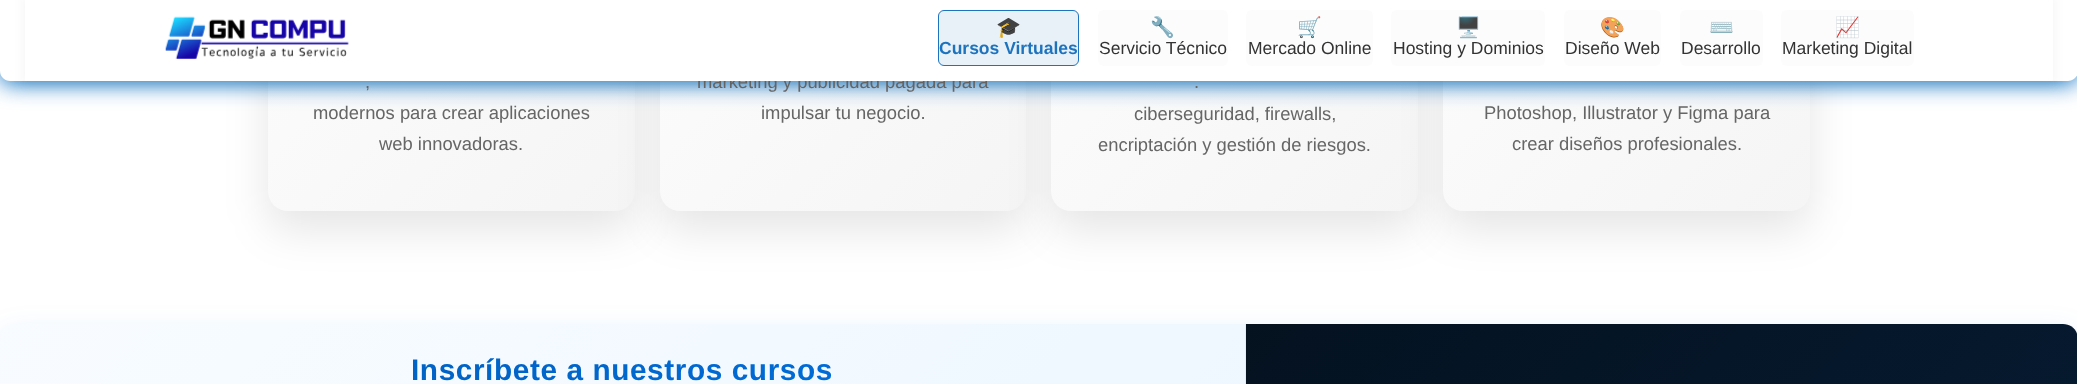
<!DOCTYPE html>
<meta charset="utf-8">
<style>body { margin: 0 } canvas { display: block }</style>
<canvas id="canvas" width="2077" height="384"></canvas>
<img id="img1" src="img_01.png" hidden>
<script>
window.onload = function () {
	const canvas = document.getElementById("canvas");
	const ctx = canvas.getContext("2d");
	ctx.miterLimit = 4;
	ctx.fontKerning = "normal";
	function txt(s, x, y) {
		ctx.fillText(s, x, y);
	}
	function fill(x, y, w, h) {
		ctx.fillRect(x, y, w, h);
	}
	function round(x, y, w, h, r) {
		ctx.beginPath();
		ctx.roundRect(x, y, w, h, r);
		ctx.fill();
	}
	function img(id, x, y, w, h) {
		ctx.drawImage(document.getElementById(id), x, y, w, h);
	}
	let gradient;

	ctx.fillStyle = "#FFFFFF";
	fill(0, 0, 2077, 384);
	ctx.fillStyle = "rgba(0, 0, 0, 0.1)";
	ctx.filter = "blur(22px)";
	ctx.beginPath();
	ctx.roundRect(268, -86, 367, 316, 20);
	ctx.fill();
	ctx.filter = "none";
	gradient = ctx.createLinearGradient(238, -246, 665, 181);
	gradient.addColorStop(0, "#FFFFFF");
	gradient.addColorStop(1, "#F5F5F5");
	ctx.fillStyle = gradient;
	round(268, -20, 367, 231, 20);
	ctx.fillStyle = "rgba(0, 0, 0, 0.1)";
	ctx.filter = "blur(22px)";
	ctx.beginPath();
	ctx.roundRect(660, -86, 366, 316, 20);
	ctx.fill();
	ctx.filter = "none";
	gradient = ctx.createLinearGradient(630, -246, 1057, 181);
	gradient.addColorStop(0, "#FFFFFF");
	gradient.addColorStop(1, "#F5F5F5");
	ctx.fillStyle = gradient;
	round(660, -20, 366, 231, 20);
	ctx.fillStyle = "rgba(0, 0, 0, 0.1)";
	ctx.filter = "blur(22px)";
	ctx.beginPath();
	ctx.roundRect(1051, -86, 367, 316, 20);
	ctx.fill();
	ctx.filter = "none";
	gradient = ctx.createLinearGradient(1021, -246, 1448, 181);
	gradient.addColorStop(0, "#FFFFFF");
	gradient.addColorStop(1, "#F5F5F5");
	ctx.fillStyle = gradient;
	round(1051, -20, 367, 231, 20);
	ctx.fillStyle = "rgba(0, 0, 0, 0.1)";
	ctx.filter = "blur(22px)";
	ctx.beginPath();
	ctx.roundRect(1443, -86, 367, 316, 20);
	ctx.fill();
	ctx.filter = "none";
	gradient = ctx.createLinearGradient(1413, -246, 1840, 181);
	gradient.addColorStop(0, "#FFFFFF");
	gradient.addColorStop(1, "#F5F5F5");
	ctx.fillStyle = gradient;
	round(1443, -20, 367, 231, 20);
	ctx.fillStyle = "#0C71C3";
	ctx.filter = "blur(11px)";
	ctx.beginPath();
	ctx.roundRect(0, 3, 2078, 81, 10);
	ctx.fill();
	ctx.filter = "none";
	ctx.fillStyle = "rgba(0, 115, 230, 0.15)";
	ctx.filter = "blur(15.5px)";
	ctx.beginPath();
	ctx.roundRect(0, 336, 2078, 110, 15);
	ctx.fill();
	ctx.filter = "none";
	gradient = ctx.createLinearGradient(142, 182, 1103, 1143);
	gradient.addColorStop(0, "#F8FCFF");
	gradient.addColorStop(1, "#EAF5FF");
	ctx.fillStyle = gradient;
	ctx.beginPath();
	ctx.moveTo(15, 324);
	ctx.lineTo(1245, 324);
	ctx.lineTo(1245, 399);
	ctx.lineTo(15, 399);
	ctx.bezierCurveTo(6.5, 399, 0, 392.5, 0, 384);
	ctx.lineTo(0, 339);
	ctx.bezierCurveTo(0, 330.5, 6.5, 324, 15, 324);
	ctx.closePath();
	ctx.fill();
	ctx.fillStyle = "#DFEEFD";
	fill(1245, 324, 1, 60);
	gradient = ctx.createLinearGradient(1285, 285, 2039, 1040);
	gradient.addColorStop(0, "#041220");
	gradient.addColorStop(1, "#071E38");
	ctx.fillStyle = gradient;
	ctx.beginPath();
	ctx.moveTo(1246, 324);
	ctx.lineTo(2063, 324);
	ctx.bezierCurveTo(2071.5, 324, 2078, 330.5, 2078, 339);
	ctx.lineTo(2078, 384);
	ctx.bezierCurveTo(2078, 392.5, 2071.5, 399, 2063, 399);
	ctx.lineTo(1246, 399);
	ctx.closePath();
	ctx.fill();
	ctx.font = "18.4px Liberation Sans";
	ctx.fillStyle = "#666666";
	txt(",", 365, 88);
	txt("modernos para crear aplicaciones", 313, 119);
	txt("web innovadoras.", 379, 150);
	txt("marketing y publicidad pagada para", 697, 88);
	ctx.fillStyle = "#FFFFFF";
	ctx.beginPath();
	ctx.moveTo(0, 0);
	ctx.lineTo(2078, 0);
	ctx.lineTo(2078, 71);
	ctx.bezierCurveTo(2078, 76.5, 2073.5, 81, 2068, 81);
	ctx.lineTo(10, 81);
	ctx.bezierCurveTo(4.5, 81, 0, 76.5, 0, 71);
	ctx.closePath();
	ctx.fill();
	ctx.fillStyle = "rgba(0, 0, 0, 0.05)";
	ctx.filter = "blur(6px)";
	ctx.beginPath();
	ctx.rect(25, -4, 2028, 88);
	ctx.fill();
	ctx.filter = "none";
	ctx.fillStyle = "#FFFFFF";
	fill(25, 0, 2028, 81);
	ctx.fillStyle = "#FCFCFC";
	round(1781, 10, 133, 56, 6);
	ctx.font = "17.5px Liberation Sans";
	ctx.fillStyle = "#333333";
	txt("Marketing Digital", 1782, 54);
	ctx.font = "20px Noto Color Emoji";
	ctx.fillStyle = "#1E73BE";
	txt("📈", 1835, 34);
	ctx.fillStyle = "#FCFCFC";
	round(1680, 10, 83, 56, 6);
	ctx.font = "17.5px Liberation Sans";
	ctx.fillStyle = "#333333";
	txt("Desarrollo", 1681, 54);
	ctx.font = "20px Noto Color Emoji";
	ctx.fillStyle = "#1E73BE";
	txt("⌨️", 1709, 34);
	ctx.fillStyle = "#FCFCFC";
	round(1564, 10, 97, 56, 6);
	ctx.font = "17.5px Liberation Sans";
	ctx.fillStyle = "#333333";
	txt("Diseño Web", 1565, 54);
	ctx.font = "20px Noto Color Emoji";
	ctx.fillStyle = "#1E73BE";
	txt("🎨", 1600, 34);
	ctx.fillStyle = "#FCFCFC";
	round(1391, 10, 154, 56, 6);
	ctx.font = "17.5px Liberation Sans";
	ctx.fillStyle = "#333333";
	txt("Hosting y Dominios", 1393, 54);
	ctx.font = "20px Noto Color Emoji";
	ctx.fillStyle = "#1E73BE";
	txt("🖥️", 1456, 34);
	ctx.fillStyle = "#FCFCFC";
	round(1246, 10, 127, 56, 6);
	ctx.font = "17.5px Liberation Sans";
	ctx.fillStyle = "#333333";
	txt("Mercado Online", 1248, 54);
	ctx.font = "20px Noto Color Emoji";
	ctx.fillStyle = "#1E73BE";
	txt("🛒", 1297, 34);
	ctx.fillStyle = "#FCFCFC";
	round(1098, 10, 130, 56, 6);
	ctx.font = "17.5px Liberation Sans";
	ctx.fillStyle = "#333333";
	txt("Servicio Técnico", 1099, 54);
	ctx.font = "20px Noto Color Emoji";
	ctx.fillStyle = "#1E73BE";
	txt("🔧", 1150, 34);
	ctx.fillStyle = "rgba(30, 115, 190, 0.1)";
	ctx.beginPath();
	ctx.roundRect(938.5, 10.5, 140, 55, 5.5);
	ctx.fill();
	ctx.strokeStyle = "#1E73BE";
	ctx.stroke();
	ctx.font = "bold 17.5px Liberation Sans";
	ctx.fillStyle = "#1E73BE";
	txt("Cursos Virtuales", 939, 54);
	ctx.font = "bold 20px Noto Color Emoji";
	txt("🎓", 996, 34);
	img("img1", 165, 16, 184, 44);
	ctx.font = "18.4px Liberation Sans";
	ctx.fillStyle = "#666666";
	txt("impulsar tu negocio.", 761, 119);
	txt(".", 1194, 88);
	txt("ciberseguridad, firewalls,", 1134, 120);
	txt("encriptación y gestión de riesgos.", 1098, 151);
	txt("Photoshop, Illustrator y Figma para", 1484, 119);
	txt("crear diseños profesionales.", 1512, 150);
	ctx.letterSpacing = "0.6px";
	ctx.font = "bold 29.75px Liberation Sans";
	gradient = ctx.createLinearGradient(38, 376, 1208, 376);
	gradient.addColorStop(0, "#005BB5");
	gradient.addColorStop(1, "#0073E6");
	ctx.fillStyle = gradient;
	txt("Inscríbete a nuestros cursos", 411, 380);
};
</script>
